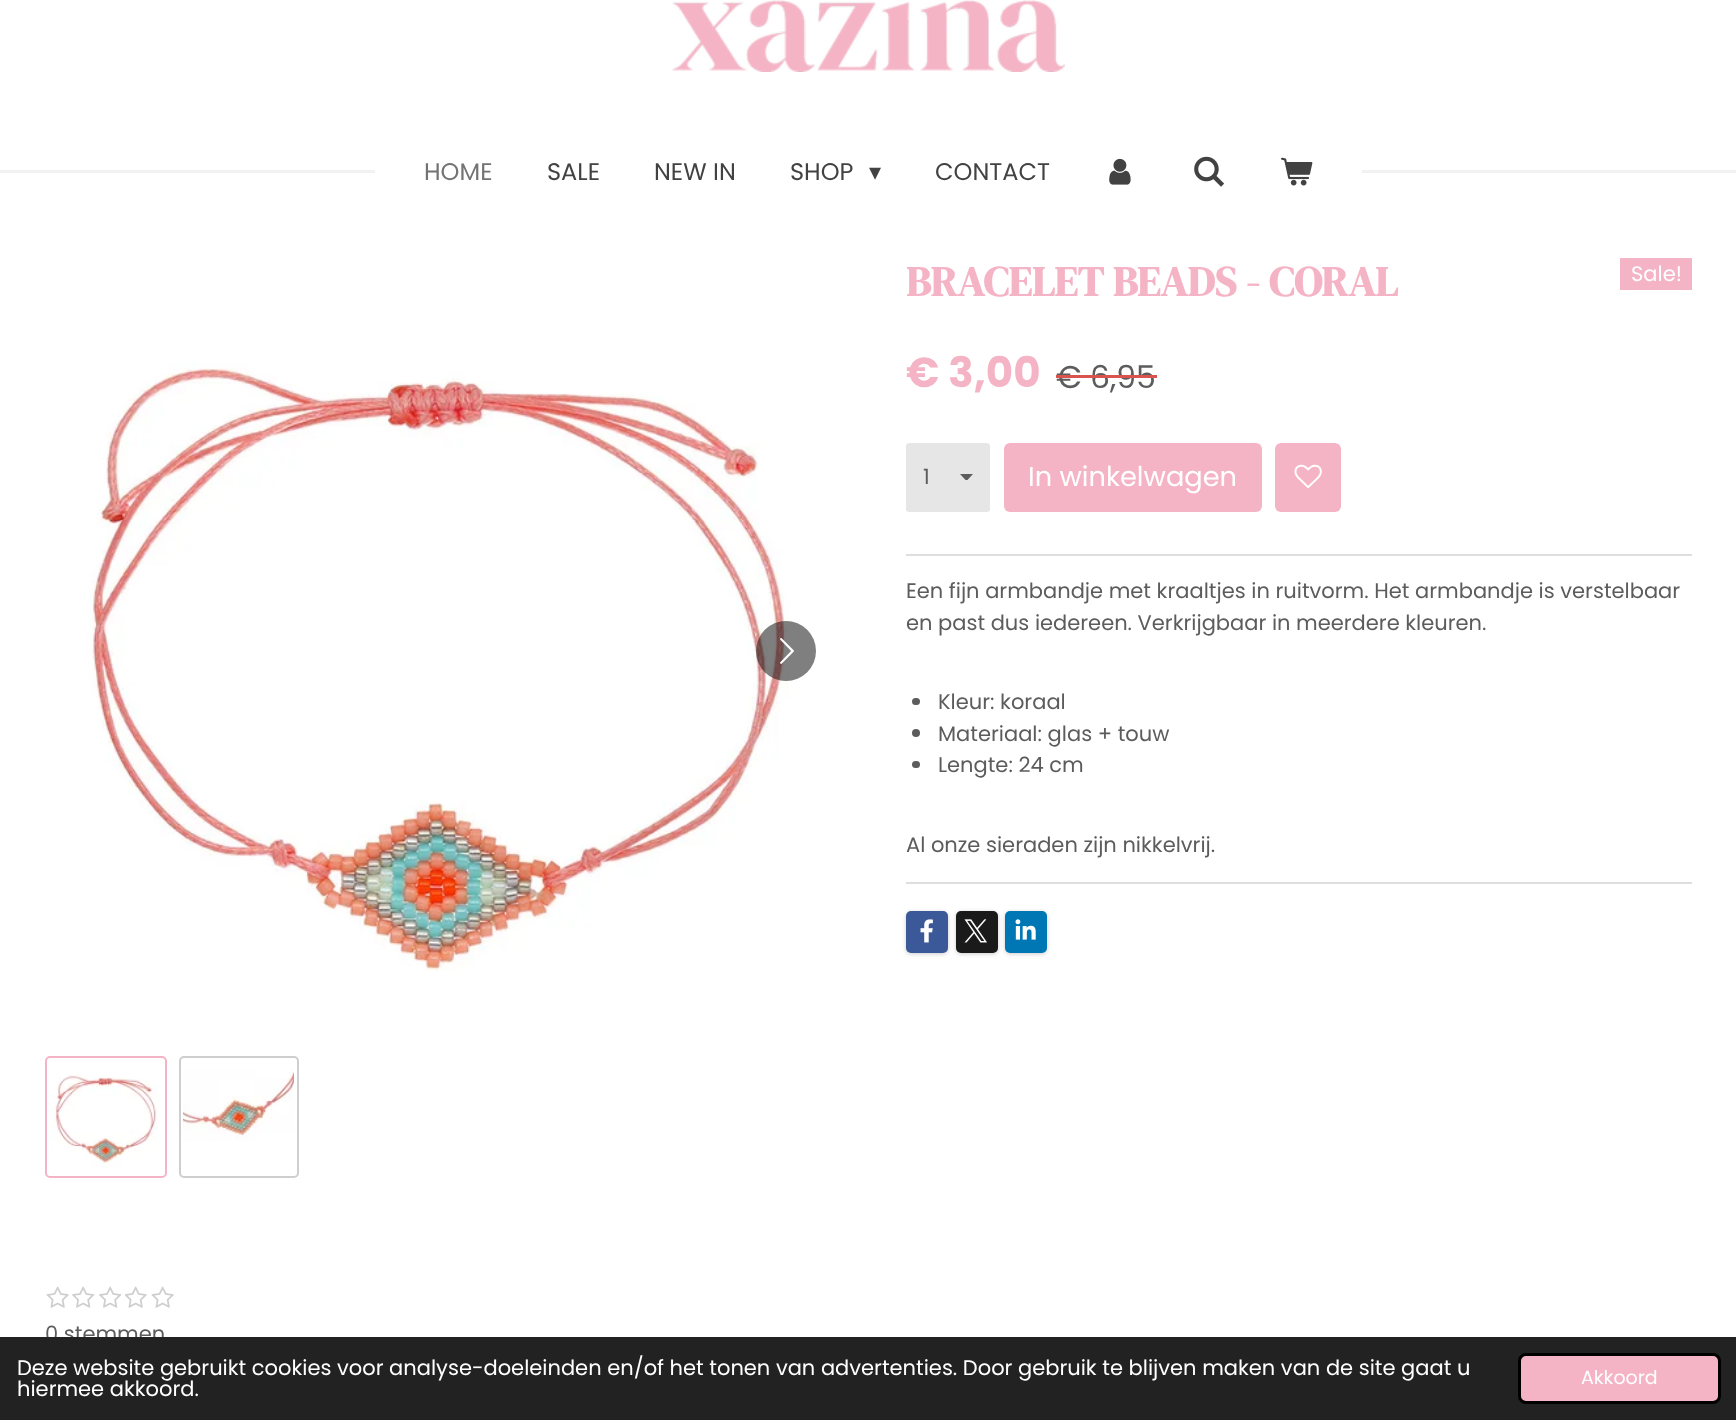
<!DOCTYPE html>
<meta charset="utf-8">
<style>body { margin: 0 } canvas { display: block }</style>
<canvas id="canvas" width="1736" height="1420"></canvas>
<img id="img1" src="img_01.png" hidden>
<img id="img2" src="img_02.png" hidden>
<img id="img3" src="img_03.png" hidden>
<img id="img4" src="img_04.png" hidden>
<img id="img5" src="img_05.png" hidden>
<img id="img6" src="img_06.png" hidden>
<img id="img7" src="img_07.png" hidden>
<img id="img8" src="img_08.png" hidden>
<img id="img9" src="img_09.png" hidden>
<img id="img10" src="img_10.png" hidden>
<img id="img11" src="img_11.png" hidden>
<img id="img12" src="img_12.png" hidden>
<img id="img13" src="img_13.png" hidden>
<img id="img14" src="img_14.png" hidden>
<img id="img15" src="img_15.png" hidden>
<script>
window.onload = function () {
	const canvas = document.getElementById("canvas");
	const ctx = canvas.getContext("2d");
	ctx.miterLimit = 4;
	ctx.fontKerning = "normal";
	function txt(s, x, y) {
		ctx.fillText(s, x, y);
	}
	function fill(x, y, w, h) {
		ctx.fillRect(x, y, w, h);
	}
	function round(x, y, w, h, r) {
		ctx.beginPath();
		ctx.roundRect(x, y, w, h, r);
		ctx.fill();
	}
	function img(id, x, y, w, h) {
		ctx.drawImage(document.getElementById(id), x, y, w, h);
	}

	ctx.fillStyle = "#FFFFFF";
	fill(0, 0, 1736, 1420);
	img("img1", 672, 0, 393, 72);
	ctx.fillStyle = "#F2F2F2";
	fill(0, 170, 375, 3);
	img("img2", 1109, 158, 22, 27);
	img("img3", 1194, 156, 31, 31);
	img("img4", 1281, 157, 32, 29);
	fill(1362, 170, 374, 3);
	ctx.fillStyle = "#F5B4C6";
	fill(1620, 258, 72, 32);
	img("img5", 87, 363, 702, 608);
	ctx.fillStyle = "rgba(0, 0, 0, 0.5)";
	ctx.beginPath();
	ctx.arc(786, 651, 30, 0, Math.PI * 2);
	ctx.fill();
	img("img6", 780, 638, 14, 26);
	ctx.beginPath();
	ctx.roundRect(46, 1057, 120, 120, 4);
	ctx.strokeStyle = "#F5B4C6";
	ctx.lineWidth = 2;
	ctx.stroke();
	img("img7", 49, 1074, 109, 95);
	ctx.beginPath();
	ctx.roundRect(180, 1057, 118, 120, 4);
	ctx.strokeStyle = "#CECECE";
	ctx.stroke();
	img("img8", 183, 1069, 111, 72);
	ctx.fillStyle = "#E6E6E6";
	round(906, 443, 84, 69, 3);
	ctx.save();
	ctx.beginPath();
	ctx.rect(960, 474, 14, 6);
	ctx.clip();
	ctx.fillStyle = "#5C5C5C";
	ctx.beginPath();
	ctx.moveTo(966.5, 481);
	ctx.lineTo(960, 474);
	ctx.lineTo(973, 474);
	ctx.closePath();
	ctx.fill();
	ctx.restore();
	ctx.fillStyle = "#F5B4C6";
	round(1004, 443, 258, 69, 6);
	round(1275, 443, 66, 69, 6);
	img("img9", 1294, 464, 28, 25);
	ctx.fillStyle = "#DEDEDE";
	fill(906, 554, 786, 2);
	ctx.fillStyle = "#5C5C5C";
	round(912, 698, 8, 7, 3.5);
	ctx.beginPath();
	ctx.arc(916, 733, 4, 0, Math.PI * 2);
	ctx.fill();
	round(912, 761, 8, 7, 3.5);
	ctx.fillStyle = "#DEDEDE";
	fill(906, 882, 786, 2);
	ctx.fillStyle = "rgba(0, 0, 0, 0.2)";
	ctx.filter = "blur(2px)";
	ctx.beginPath();
	ctx.roundRect(906, 912, 42, 42, 5);
	ctx.fill();
	ctx.filter = "none";
	ctx.fillStyle = "#3B5998";
	round(906, 911, 42, 42, 5);
	img("img10", 920, 919, 13, 24);
	ctx.fillStyle = "rgba(0, 0, 0, 0.2)";
	ctx.filter = "blur(2px)";
	ctx.beginPath();
	ctx.roundRect(956, 912, 42, 42, 5);
	ctx.fill();
	ctx.filter = "none";
	ctx.fillStyle = "#1A1A1A";
	round(956, 911, 42, 42, 5);
	img("img11", 964, 919, 23, 24);
	ctx.fillStyle = "rgba(0, 0, 0, 0.2)";
	ctx.filter = "blur(2px)";
	ctx.beginPath();
	ctx.roundRect(1005, 912, 42, 42, 5);
	ctx.fill();
	ctx.filter = "none";
	ctx.fillStyle = "#0077B5";
	round(1005, 911, 42, 42, 5);
	img("img12", 1015, 919, 21, 21);
	img("img13", 46, 1286, 23, 22);
	img("img14", 72, 1286, 23, 22);
	img("img14", 99, 1286, 23, 22);
	img("img15", 125, 1286, 22, 22);
	img("img13", 151, 1286, 23, 22);
	ctx.font = "24px Poppins";
	ctx.fillStyle = "#737373";
	txt("HOME", 424, 180);
	ctx.fillStyle = "#424242";
	txt("SALE", 547, 180);
	txt("NEW IN", 654, 180);
	txt("SHOP", 790, 180);
	ctx.font = "24px DejaVu Sans";
	txt("▾", 869, 180);
	ctx.font = "24px Poppins";
	txt("CONTACT", 935, 180);
	ctx.font = "bold 42px DM Serif Display";
	ctx.fillStyle = "#F5B4C6";
	txt("BRACELET BEADS - CORAL", 906, 296);
	ctx.font = "21px Poppins";
	ctx.fillStyle = "#FFFFFF";
	txt("Sale!", 1631, 281);
	ctx.font = "bold 42px Poppins";
	ctx.fillStyle = "#F5B4C6";
	txt("€ 3,00", 906, 387);
	ctx.font = "31.5px Poppins";
	ctx.fillStyle = "#5C5C5C";
	txt("€ 6,95", 1056, 388);
	ctx.fillStyle = "#D9534F";
	fill(1056, 375, 101, 3);
	ctx.font = "21px Poppins";
	ctx.fillStyle = "#5C5C5C";
	txt("1", 923, 484);
	ctx.font = "27.25px Poppins";
	ctx.fillStyle = "#FFFFFF";
	txt("In winkelwagen", 1028, 486);
	ctx.font = "21px Poppins";
	ctx.fillStyle = "#5C5C5C";
	txt("Een fijn armbandje met kraaltjes in ruitvorm. Het armbandje is verstelbaar", 906, 598);
	txt("en past dus iedereen. Verkrijgbaar in meerdere kleuren.", 906, 630);
	txt("Kleur: koraal", 938, 709);
	txt("Materiaal: glas + touw", 938, 741);
	txt("Lengte: 24 cm", 938, 772);
	txt("Al onze sieraden zijn nikkelvrij.", 906, 852);
	txt("0 stemmen", 45, 1341);
	ctx.fillStyle = "#222222";
	fill(0, 1337, 1736, 83);
	ctx.fillStyle = "#FFFFFF";
	txt("Deze website gebruikt cookies voor analyse-doeleinden en/of het tonen van advertenties. Door gebruik te blijven maken van de site gaat u", 17, 1375);
	txt("hiermee akkoord.", 17, 1396);
	ctx.fillStyle = "#F5B4C6";
	ctx.beginPath();
	ctx.roundRect(1519.5, 1354.5, 200, 48, 6.5);
	ctx.fill();
	ctx.strokeStyle = "#000000";
	ctx.lineWidth = 3;
	ctx.stroke();
	ctx.font = "19px Poppins";
	ctx.fillStyle = "#FFFFFF";
	txt("Akkoord", 1581, 1384);
};
</script>
